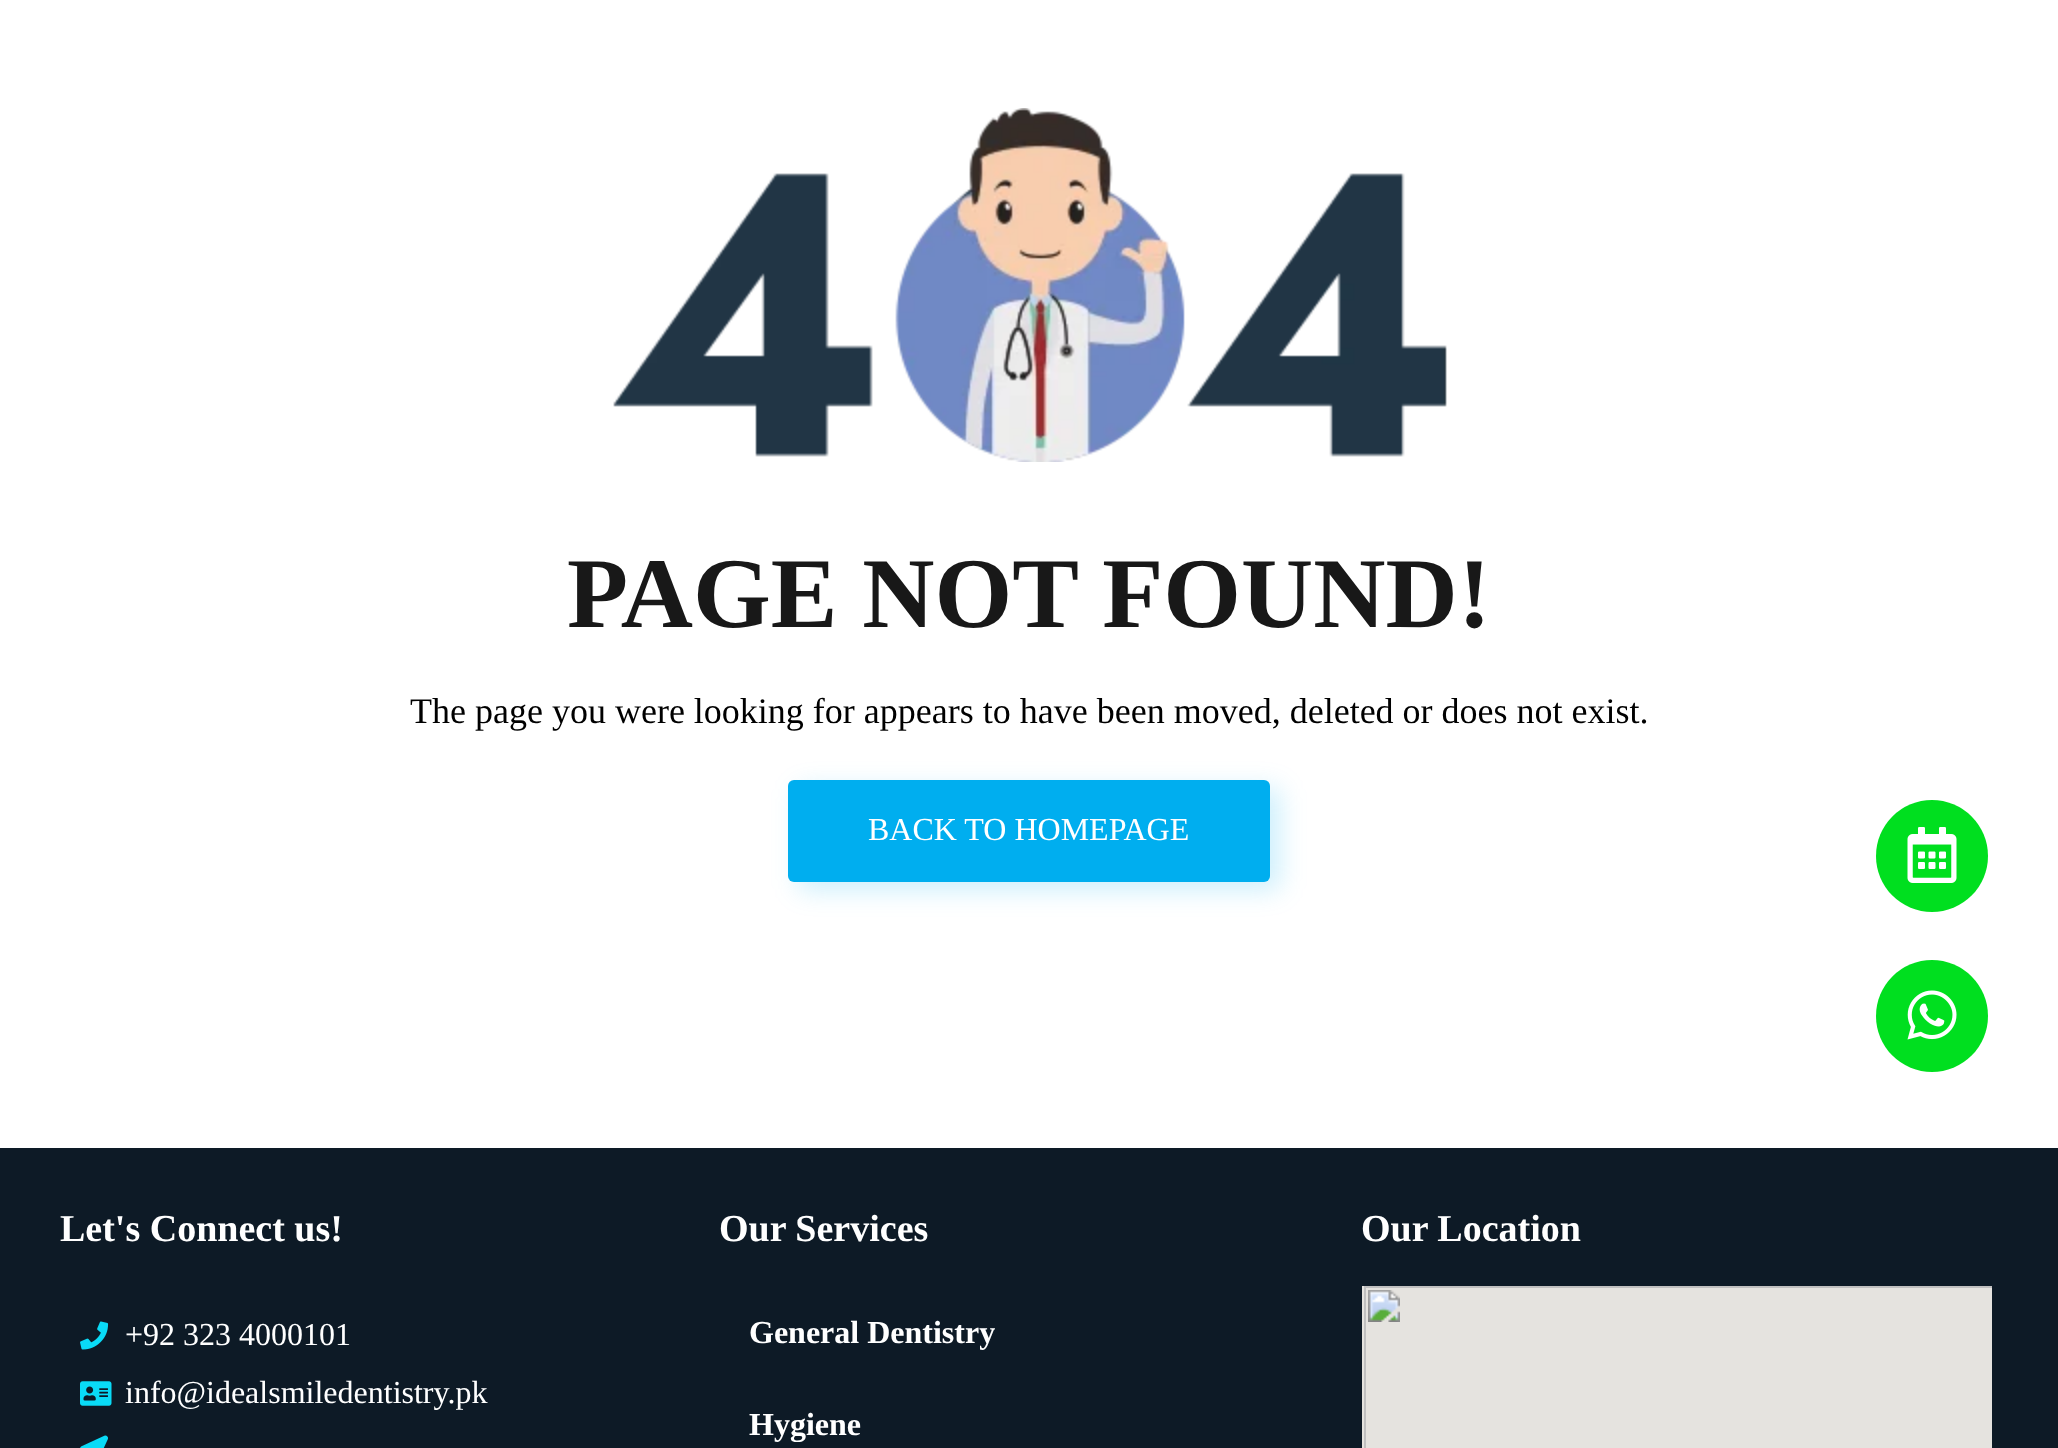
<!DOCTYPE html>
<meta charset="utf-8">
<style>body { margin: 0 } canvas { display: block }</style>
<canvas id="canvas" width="2058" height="1448"></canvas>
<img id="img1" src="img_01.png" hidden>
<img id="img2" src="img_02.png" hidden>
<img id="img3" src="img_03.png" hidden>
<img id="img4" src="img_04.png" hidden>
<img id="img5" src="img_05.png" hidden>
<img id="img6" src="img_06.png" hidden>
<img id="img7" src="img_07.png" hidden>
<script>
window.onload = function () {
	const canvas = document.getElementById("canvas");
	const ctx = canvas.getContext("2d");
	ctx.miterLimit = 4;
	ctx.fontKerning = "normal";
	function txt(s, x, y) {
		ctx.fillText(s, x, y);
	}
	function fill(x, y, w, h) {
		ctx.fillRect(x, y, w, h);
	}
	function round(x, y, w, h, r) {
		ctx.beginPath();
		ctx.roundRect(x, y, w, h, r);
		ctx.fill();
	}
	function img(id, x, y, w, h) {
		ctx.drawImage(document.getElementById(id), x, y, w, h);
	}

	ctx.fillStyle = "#FFFFFF";
	fill(0, 0, 2058, 1448);
	img("img1", 613, 108, 834, 354);
	ctx.fillStyle = "rgba(0, 174, 239, 0.2)";
	ctx.filter = "blur(13px)";
	ctx.beginPath();
	ctx.roundRect(798, 788, 482, 102, 6);
	ctx.fill();
	ctx.filter = "none";
	ctx.fillStyle = "#00AEEF";
	round(788, 780, 482, 102, 6);
	ctx.fillStyle = "#00DF1F";
	ctx.beginPath();
	ctx.arc(1932, 856, 56, 0, Math.PI * 2);
	ctx.fill();
	img("img2", 1907, 827, 50, 56);
	ctx.beginPath();
	ctx.arc(1932, 1016, 56, 0, Math.PI * 2);
	ctx.fill();
	img("img3", 1907, 990, 50, 50);
	ctx.fillStyle = "#0D1A26";
	fill(0, 1148, 2058, 300);
	img("img4", 80, 1321, 29, 29);
	img("img5", 80, 1381, 32, 25);
	img("img6", 80, 1435, 28, 13);
	img("img7", 1362, 1286, 630, 162);
	ctx.font = "bold 100px Liberation Serif";
	ctx.fillStyle = "#181818";
	txt("PAGE NOT FOUND!", 567, 627);
	ctx.font = "36px Liberation Serif";
	ctx.fillStyle = "#000000";
	txt("The page you were looking for appears to have been moved, deleted or does not exist.", 410, 723);
	ctx.font = "32px Liberation Serif";
	ctx.fillStyle = "#FFFFFF";
	txt("BACK TO HOMEPAGE", 868, 840);
	ctx.font = "bold 38px Liberation Serif";
	txt("Let's Connect us!", 60, 1241);
	ctx.font = "32px Liberation Serif";
	txt("+92 323 4000101", 125, 1345);
	txt("info@idealsmiledentistry.pk", 125, 1403);
	ctx.font = "bold 38px Liberation Serif";
	txt("Our Services", 719, 1241);
	ctx.font = "bold 32px Liberation Serif";
	txt("General Dentistry", 749, 1343);
	txt("Hygiene", 749, 1435);
	ctx.font = "bold 38px Liberation Serif";
	txt("Our Location", 1361, 1241);
};
</script>
